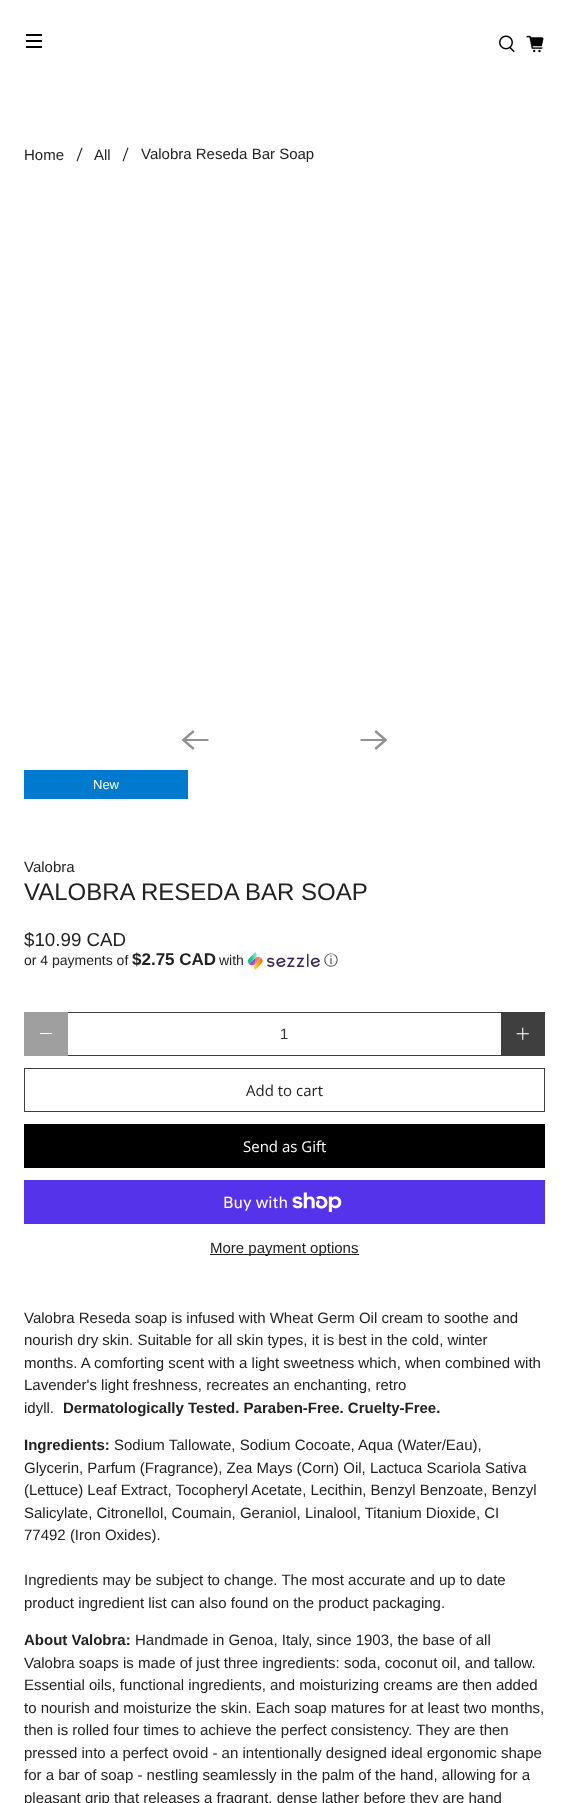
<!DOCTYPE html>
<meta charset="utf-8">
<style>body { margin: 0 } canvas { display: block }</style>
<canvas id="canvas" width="569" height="1803"></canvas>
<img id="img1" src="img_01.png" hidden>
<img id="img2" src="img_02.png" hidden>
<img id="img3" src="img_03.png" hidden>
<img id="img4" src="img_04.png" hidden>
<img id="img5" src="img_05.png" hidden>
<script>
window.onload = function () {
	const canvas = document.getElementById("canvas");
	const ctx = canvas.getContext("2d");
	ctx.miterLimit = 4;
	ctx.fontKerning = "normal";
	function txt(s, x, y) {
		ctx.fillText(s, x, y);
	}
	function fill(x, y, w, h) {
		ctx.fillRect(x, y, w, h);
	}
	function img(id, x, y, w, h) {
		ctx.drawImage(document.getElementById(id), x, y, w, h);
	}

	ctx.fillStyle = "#FFFFFF";
	fill(0, 0, 569, 1803);
	ctx.fillStyle = "#000000";
	fill(26, 34, 16, 2);
	fill(26, 40, 16, 2);
	fill(26, 46, 16, 2);
	img("img1", 499, 35, 16, 18);
	img("img2", 526, 35, 18, 18);
	ctx.fillStyle = "#222222";
	ctx.beginPath();
	ctx.moveTo(76.5, 161);
	ctx.lineTo(81.5, 147.5);
	ctx.lineTo(82.5, 148);
	ctx.lineTo(77.5, 161.5);
	ctx.closePath();
	ctx.moveTo(122.5, 161);
	ctx.lineTo(127.5, 147.5);
	ctx.lineTo(128.5, 148);
	ctx.lineTo(123.5, 161.5);
	ctx.closePath();
	ctx.fill();
	ctx.fillStyle = "#919191";
	ctx.beginPath();
	ctx.moveTo(208.5, 739);
	ctx.lineTo(186.5, 739);
	ctx.lineTo(194.5, 732);
	ctx.lineTo(193, 730);
	ctx.lineTo(181.5, 740);
	ctx.lineTo(193, 750);
	ctx.lineTo(194.5, 748);
	ctx.lineTo(186.5, 741);
	ctx.lineTo(208.5, 741);
	ctx.closePath();
	ctx.fill();
	ctx.beginPath();
	ctx.moveTo(360.5, 741);
	ctx.lineTo(382.5, 741);
	ctx.lineTo(374.5, 748);
	ctx.lineTo(376, 750);
	ctx.lineTo(387.5, 740);
	ctx.lineTo(376, 730);
	ctx.lineTo(374.5, 732);
	ctx.lineTo(382.5, 739);
	ctx.lineTo(360.5, 739);
	ctx.closePath();
	ctx.fill();
	ctx.fillStyle = "#007ACE";
	fill(24, 770, 164, 29);
	img("img3", 248, 952, 72, 18);
	ctx.fillStyle = "#9F9F9F";
	fill(24, 1012, 44, 44);
	ctx.fillStyle = "#FFFFFF";
	fill(40, 1033, 12, 1);
	ctx.fillStyle = "#3F3F3F";
	fill(68, 1012, 433, 1);
	fill(68, 1055, 433, 1);
	fill(501, 1012, 44, 44);
	img("img4", 516, 1027, 13, 13);
	ctx.strokeStyle = "#3F3F3F";
	ctx.strokeRect(24.5, 1068.5, 520, 43);
	ctx.fillStyle = "#000000";
	fill(24, 1124, 521, 44);
	ctx.fillStyle = "#5433EB";
	fill(24, 1180, 521, 44);
	img("img5", 292, 1192, 50, 20);
	ctx.fillStyle = "#222222";
	fill(210, 1254, 149, 1);
	ctx.font = "15px Liberation Sans";
	txt("Home", 24, 160);
	txt("All", 94, 160);
	txt("Valobra Reseda Bar Soap", 141, 159);
	ctx.font = "13px Liberation Sans";
	ctx.fillStyle = "#FFFFFF";
	txt("New", 93, 789);
	ctx.font = "15px Liberation Sans";
	ctx.fillStyle = "#222222";
	txt("Valobra", 24, 872);
	ctx.font = "24px Liberation Sans";
	txt("VALOBRA RESEDA BAR SOAP", 24, 900);
	ctx.font = "18.75px Liberation Sans";
	txt("$10.99 CAD", 24, 946);
	ctx.font = "14px Liberation Sans";
	txt("or 4 payments of", 24, 965);
	ctx.font = "bold 17px Liberation Sans";
	txt("$2.75 CAD", 132, 965);
	ctx.font = "14px Liberation Sans";
	txt("with", 219, 965);
	ctx.font = "500 14px WenQuanYi Zen Hei";
	txt("ⓘ", 324, 965);
	ctx.font = "15px Liberation Sans";
	ctx.fillStyle = "#363636";
	txt("1", 280, 1039);
	ctx.font = "15px Open Sans";
	ctx.fillStyle = "#222222";
	txt("Add to cart", 246, 1096);
	ctx.fillStyle = "#FFFFFF";
	txt("Send as Gift", 243, 1152);
	ctx.font = "16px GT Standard";
	txt("Buy with", 223, 1208);
	ctx.font = "15px Liberation Sans";
	ctx.fillStyle = "#222222";
	txt("More payment options", 210, 1253);
	txt("Valobra Reseda soap is infused with Wheat Germ Oil cream to soothe and", 24, 1323);
	txt("nourish dry skin. Suitable for all skin types, it is best in the cold, winter", 24, 1345);
	txt("months. A comforting scent with a light sweetness which, when combined with", 24, 1368);
	txt("Lavender's light freshness, recreates an enchanting, retro", 24, 1390);
	txt("idyll.", 24, 1413);
	ctx.font = "bold 15px Liberation Sans";
	txt("Dermatologically Tested. Paraben-Free. Cruelty-Free.", 63, 1413);
	txt("Ingredients:", 24, 1450);
	ctx.font = "15px Liberation Sans";
	txt("Sodium Tallowate, Sodium Cocoate, Aqua (Water/Eau),", 114, 1450);
	txt("Glycerin, Parfum (Fragrance), Zea Mays (Corn) Oil, Lactuca Scariola Sativa", 24, 1473);
	txt("(Lettuce) Leaf Extract, Tocopheryl Acetate, Lecithin, Benzyl Benzoate, Benzyl", 24, 1495);
	txt("Salicylate, Citronellol, Coumain, Geraniol, Linalool, Titanium Dioxide, CI", 24, 1518);
	txt("77492 (Iron Oxides).", 24, 1540);
	txt("Ingredients may be subject to change. The most accurate and up to date", 24, 1585);
	txt("product ingredient list can also found on the product packaging.", 24, 1608);
	ctx.font = "bold 15px Liberation Sans";
	txt("About Valobra:", 24, 1645);
	ctx.font = "15px Liberation Sans";
	txt("Handmade in Genoa, Italy, since 1903, the base of all", 135, 1645);
	txt("Valobra soaps is made of just three ingredients: soda, coconut oil, and tallow.", 24, 1668);
	txt("Essential oils, functional ingredients, and moisturizing creams are then added", 24, 1690);
	txt("to nourish and moisturize the skin. Each soap matures for at least two months,", 24, 1713);
	txt("then is rolled four times to achieve the perfect consistency. They are then", 24, 1735);
	txt("pressed into a perfect ovoid - an intentionally designed ideal ergonomic shape", 24, 1758);
	txt("for a bar of soap - nestling seamlessly in the palm of the hand, allowing for a", 24, 1780);
	txt("pleasant grip that releases a fragrant, dense lather before they are hand", 24, 1803);
};
</script>
